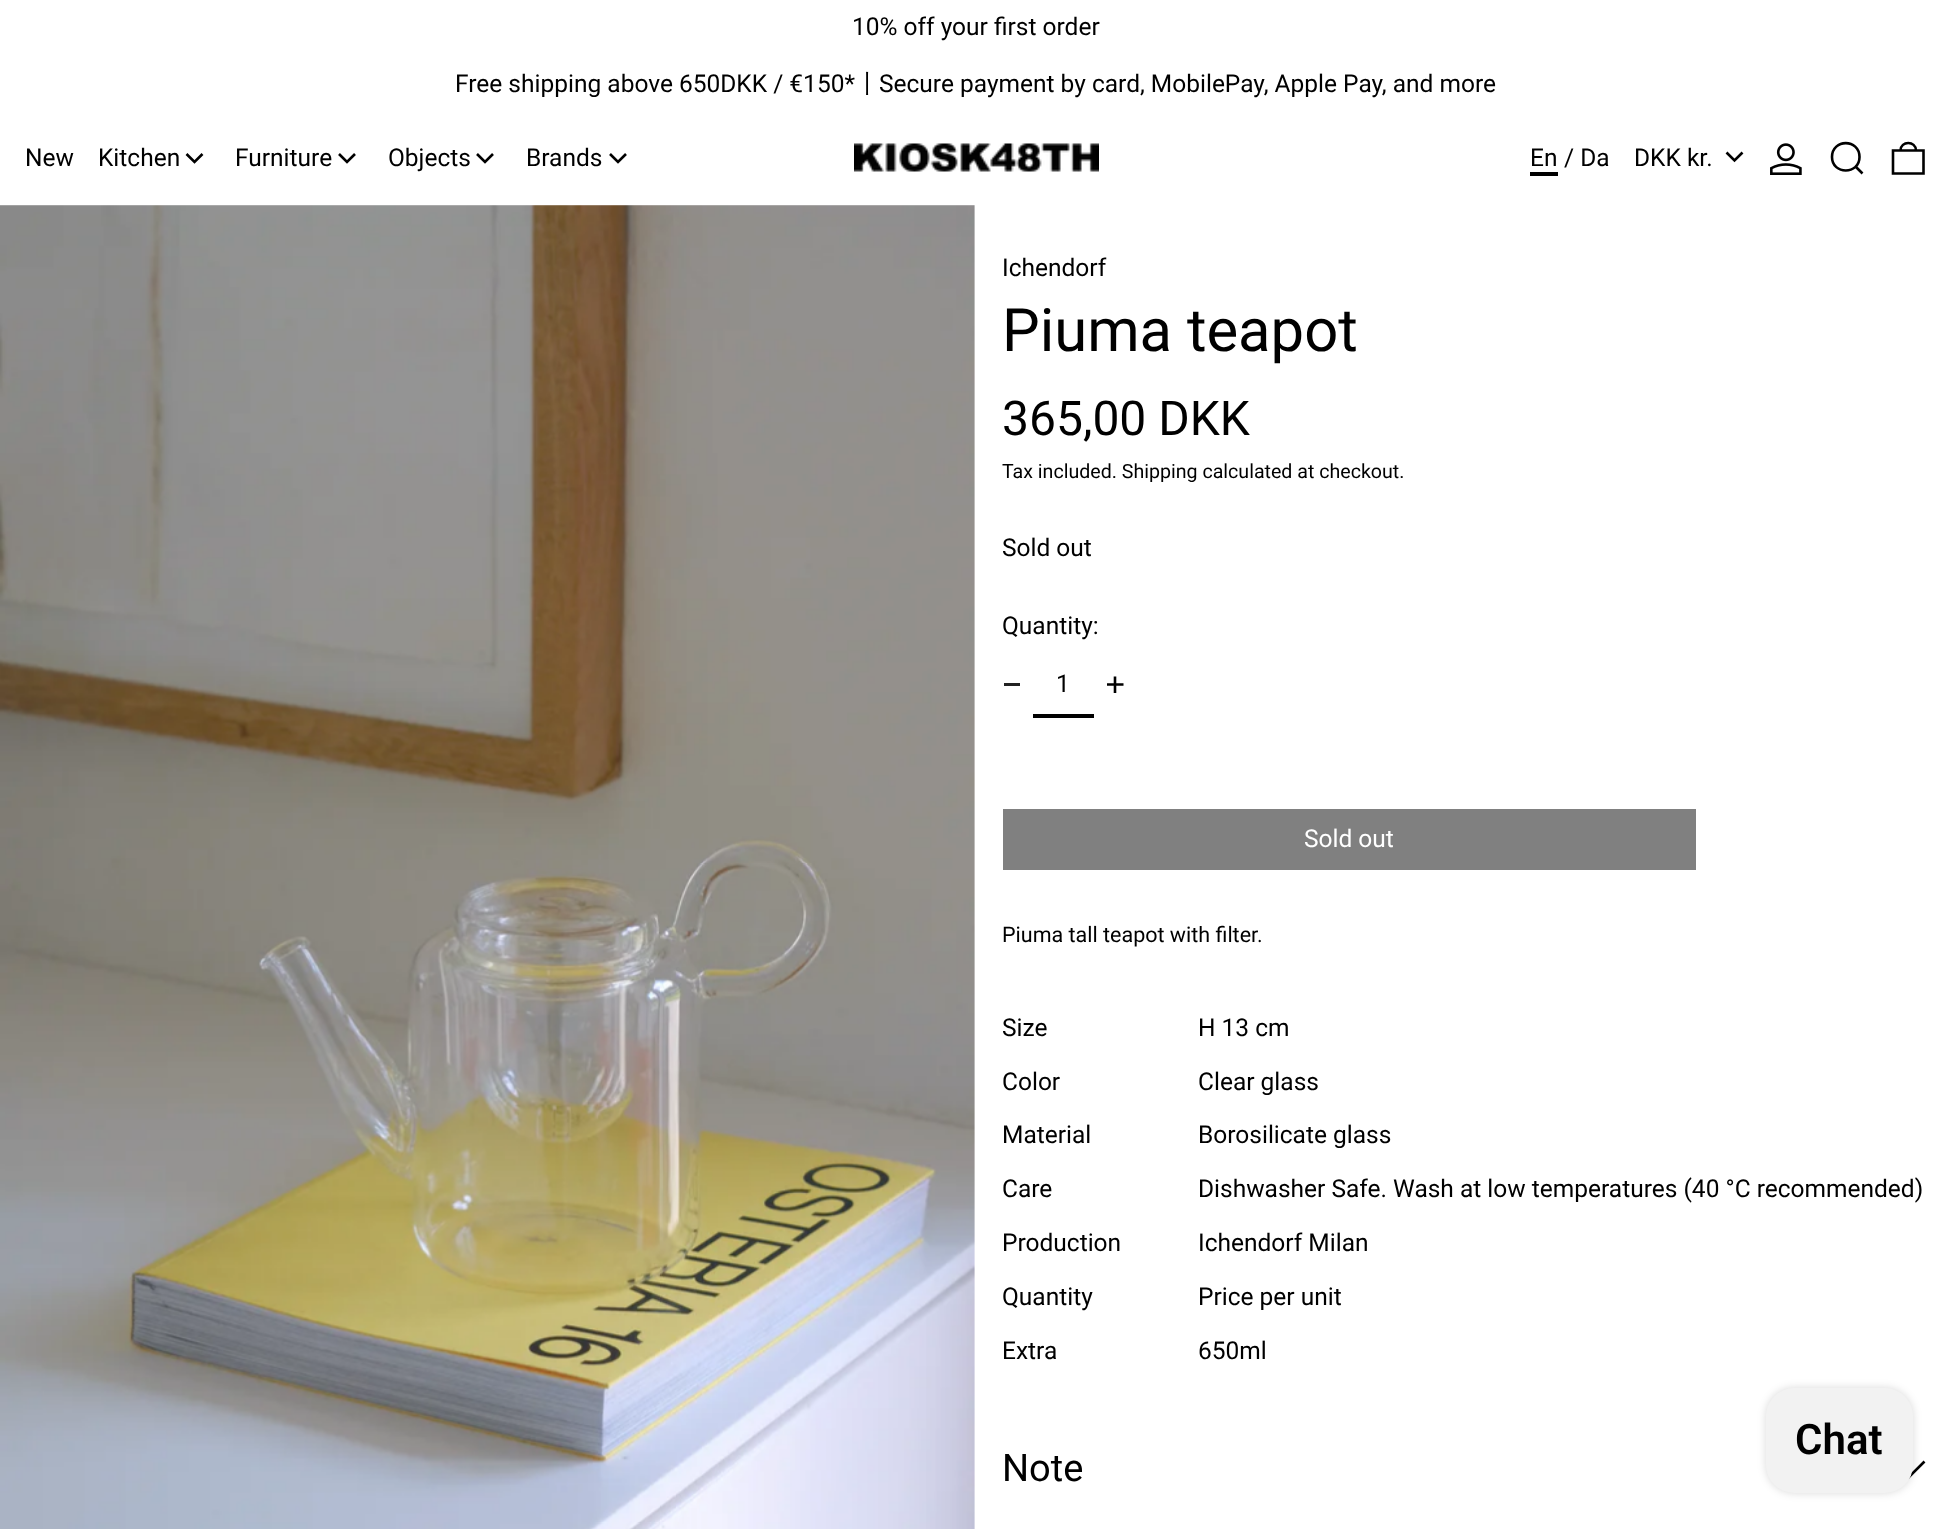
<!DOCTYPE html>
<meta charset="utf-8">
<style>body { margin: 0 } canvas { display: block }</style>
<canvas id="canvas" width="1951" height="1529"></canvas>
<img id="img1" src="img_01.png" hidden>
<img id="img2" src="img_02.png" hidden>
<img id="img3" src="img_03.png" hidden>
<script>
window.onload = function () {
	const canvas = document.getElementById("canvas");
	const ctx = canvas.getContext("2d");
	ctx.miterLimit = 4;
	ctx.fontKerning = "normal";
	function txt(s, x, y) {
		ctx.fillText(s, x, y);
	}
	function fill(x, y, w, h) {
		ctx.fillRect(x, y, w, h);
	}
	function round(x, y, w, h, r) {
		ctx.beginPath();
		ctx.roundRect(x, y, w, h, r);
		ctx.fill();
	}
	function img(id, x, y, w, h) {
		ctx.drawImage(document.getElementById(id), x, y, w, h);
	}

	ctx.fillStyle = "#FFFFFF";
	fill(0, 0, 1951, 1529);
	ctx.beginPath();
	ctx.moveTo(186.5, 154);
	ctx.lineTo(194.5, 162);
	ctx.lineTo(202.5, 154);
	ctx.strokeStyle = "#000000";
	ctx.lineWidth = 2.6;
	ctx.stroke();
	ctx.beginPath();
	ctx.moveTo(339, 154);
	ctx.lineTo(347, 162);
	ctx.lineTo(355, 154);
	ctx.stroke();
	ctx.beginPath();
	ctx.moveTo(477, 154);
	ctx.lineTo(485, 162);
	ctx.lineTo(493, 154);
	ctx.stroke();
	ctx.beginPath();
	ctx.moveTo(610, 154);
	ctx.lineTo(618, 162);
	ctx.lineTo(626, 154);
	ctx.stroke();
	img("img1", 854, 143, 245, 29);
	ctx.fillStyle = "#000000";
	fill(1530, 172, 28, 4);
	ctx.beginPath();
	ctx.moveTo(1726.5, 152.5);
	ctx.lineTo(1734.5, 160.5);
	ctx.lineTo(1742.5, 152.5);
	ctx.stroke();
	img("img2", 1770, 143, 32, 32);
	ctx.beginPath();
	ctx.moveTo(1832, 157);
	ctx.bezierCurveTo(1832, 175, 1859.5, 175, 1859.5, 157);
	ctx.bezierCurveTo(1859.5, 138.5, 1832, 138.5, 1832, 157);
	ctx.closePath();
	ctx.moveTo(1855.5, 166.5);
	ctx.lineTo(1862.5, 173.5);
	ctx.stroke();
	ctx.beginPath();
	ctx.moveTo(1893, 150.5);
	ctx.lineTo(1923.5, 150.5);
	ctx.lineTo(1923.5, 173.5);
	ctx.lineTo(1893, 173.5);
	ctx.closePath();
	ctx.moveTo(1916, 150.5);
	ctx.bezierCurveTo(1916, 140.5, 1900.5, 140.5, 1900.5, 150.5);
	ctx.stroke();
	img("img3", 0, 205, 975, 1324);
	ctx.fillStyle = "#222222";
	fill(1004, 683, 16, 3);
	ctx.fillStyle = "#000000";
	fill(1033, 714, 61, 4);
	ctx.beginPath();
	ctx.moveTo(1115, 676.5);
	ctx.lineTo(1115, 693);
	ctx.moveTo(1107, 684.5);
	ctx.lineTo(1123.5, 684.5);
	ctx.stroke();
	ctx.fillStyle = "#808080";
	fill(1003, 809, 693, 61);
	ctx.beginPath();
	ctx.moveTo(1892.5, 1461.5);
	ctx.lineTo(1908.5, 1477.5);
	ctx.lineTo(1924.5, 1461.5);
	ctx.stroke();
	ctx.fillStyle = "rgba(0, 0, 0, 0.15)";
	ctx.filter = "blur(4.5px)";
	ctx.beginPath();
	ctx.roundRect(1766, 1388, 147, 105, 28);
	ctx.fill();
	ctx.filter = "none";
	ctx.fillStyle = "#F2F2F2";
	round(1766, 1388, 147, 105, 28);
	ctx.font = "24.5px Roboto";
	ctx.fillStyle = "#000000";
	txt("10% off your first order", 852, 35);
	txt("Free shipping above 650DKK / €150*", 455, 92);
	ctx.font = "500 24.5px WenQuanYi Zen Hei";
	txt("〡", 855, 92);
	ctx.font = "24.5px Roboto";
	txt("Secure payment by card, MobilePay, Apple Pay, and more", 879, 92);
	txt("New", 25, 166);
	txt("Kitchen", 98, 166);
	txt("Furniture", 235, 166);
	txt("Objects", 388, 166);
	txt("Brands", 526, 166);
	txt("En", 1530, 166);
	txt("/ Da", 1564, 166);
	txt("DKK kr.", 1634, 166);
	txt("Ichendorf", 1002, 276);
	ctx.font = "59.75px Roboto";
	txt("Piuma teapot", 1002, 351);
	ctx.font = "48px Roboto";
	txt("365,00 DKK", 1002, 435);
	ctx.font = "19.6px Roboto";
	txt("Tax included. Shipping calculated at checkout.", 1002, 478);
	ctx.font = "24.5px Roboto";
	txt("Sold out", 1002, 556);
	txt("Quantity:", 1002, 634);
	txt("1", 1056, 692);
	ctx.fillStyle = "#FFFFFF";
	txt("Sold out", 1304, 847);
	ctx.font = "21.5px Roboto";
	ctx.fillStyle = "#000000";
	txt("Piuma tall teapot with filter.", 1002, 942);
	ctx.font = "24.5px Roboto";
	txt("Size", 1002, 1036);
	txt("H 13 cm", 1198, 1036);
	txt("Color", 1002, 1090);
	txt("Clear glass", 1198, 1090);
	txt("Material", 1002, 1143);
	txt("Borosilicate glass", 1198, 1143);
	txt("Care", 1002, 1197);
	txt("Dishwasher Safe. Wash at low temperatures (40 °C recommended)", 1198, 1197);
	txt("Production", 1002, 1251);
	txt("Ichendorf Milan", 1198, 1251);
	txt("Quantity", 1002, 1305);
	txt("Price per unit", 1198, 1305);
	txt("Extra", 1002, 1359);
	txt("650ml", 1198, 1359);
	ctx.font = "38px Roboto";
	txt("Note", 1002, 1481);
	ctx.font = "600 42px Roboto";
	txt("Chat", 1795, 1454);
};
</script>
